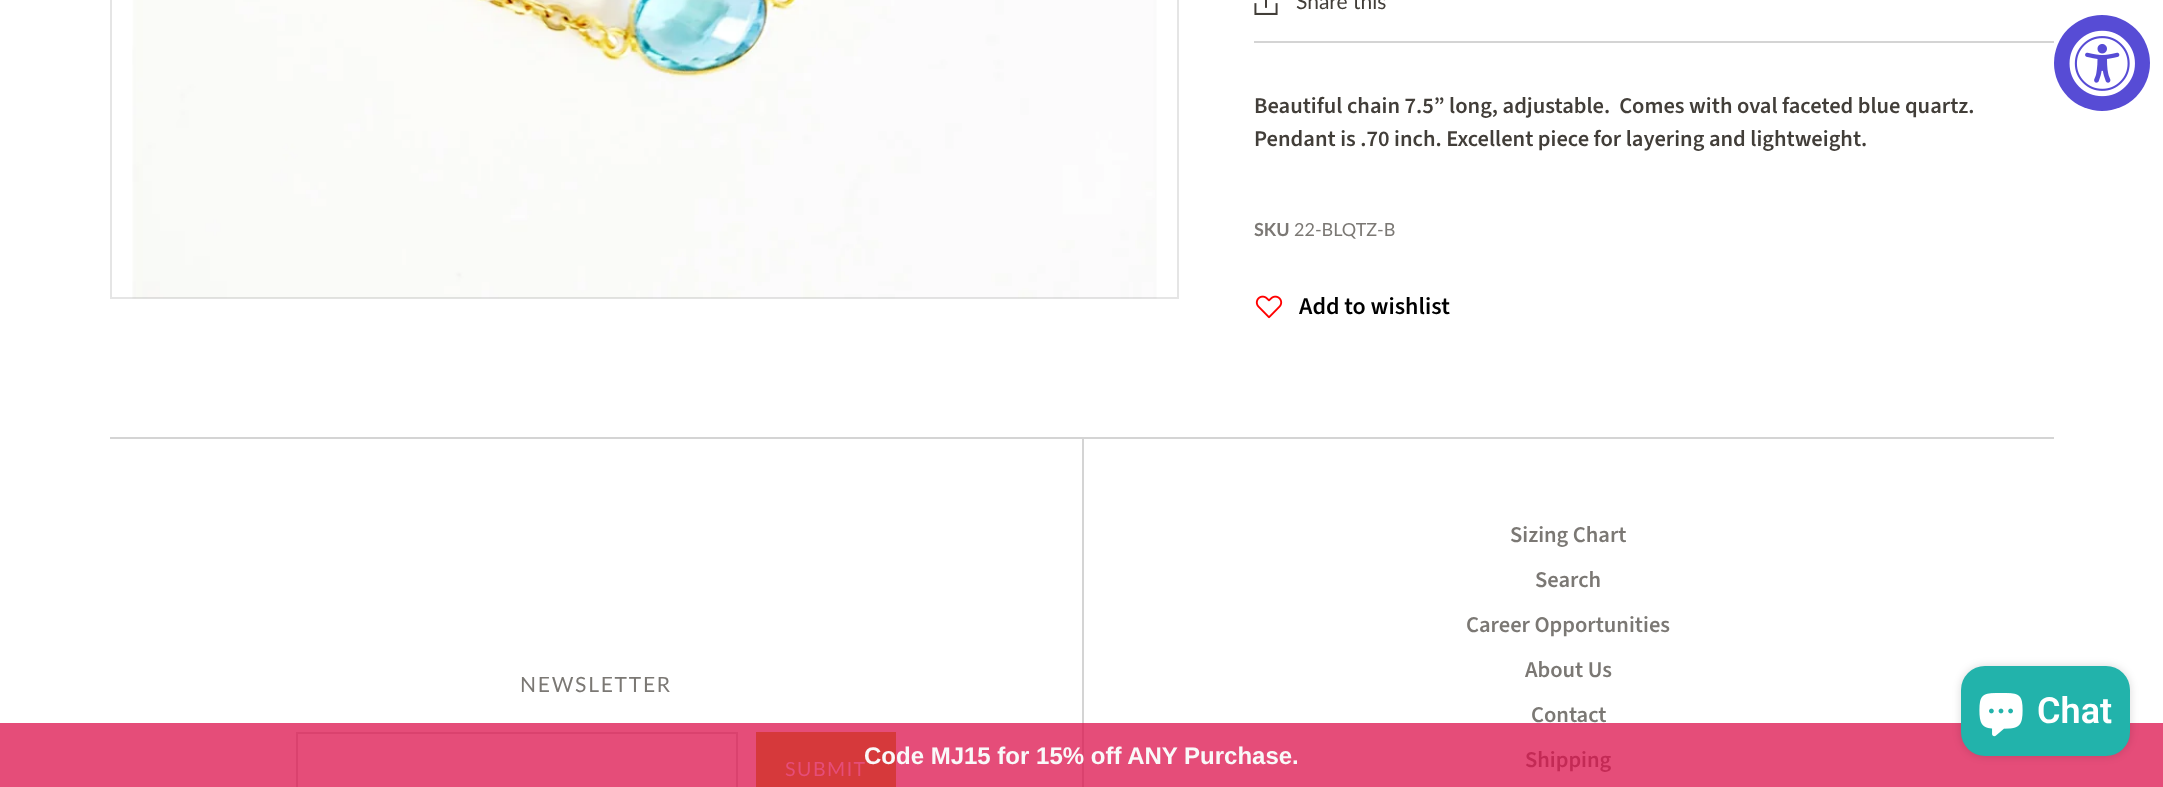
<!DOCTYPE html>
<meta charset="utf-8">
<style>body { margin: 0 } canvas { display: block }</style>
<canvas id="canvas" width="2163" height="787"></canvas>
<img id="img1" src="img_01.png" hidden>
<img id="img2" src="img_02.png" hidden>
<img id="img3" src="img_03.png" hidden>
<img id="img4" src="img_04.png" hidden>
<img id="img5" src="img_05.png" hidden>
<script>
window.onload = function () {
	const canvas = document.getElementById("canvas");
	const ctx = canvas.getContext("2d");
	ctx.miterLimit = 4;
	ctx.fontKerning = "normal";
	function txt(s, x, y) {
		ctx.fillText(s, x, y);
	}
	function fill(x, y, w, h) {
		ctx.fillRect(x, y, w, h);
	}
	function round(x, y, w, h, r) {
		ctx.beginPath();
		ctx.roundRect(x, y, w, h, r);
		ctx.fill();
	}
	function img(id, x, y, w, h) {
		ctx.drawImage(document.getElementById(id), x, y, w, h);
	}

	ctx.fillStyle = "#FFFFFF";
	fill(0, 0, 2163, 787);
	ctx.fillStyle = "#E54D79";
	fill(0, 723, 2163, 64);
	img("img1", 132, 0, 1025, 299);
	ctx.strokeStyle = "rgba(0, 0, 0, 0.1)";
	ctx.lineWidth = 2;
	ctx.strokeRect(111, -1, 1067, 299);
	ctx.fillStyle = "#D4D4D4";
	fill(1254, 41, 800, 2);
	img("img2", 1254, 0, 24, 15);
	img("img3", 1255, 295, 28, 24);
	ctx.fillStyle = "#574CD5";
	ctx.beginPath();
	ctx.arc(2102, 63, 48, 0, Math.PI * 2);
	ctx.fill();
	img("img4", 2069, 30, 66, 67);
	ctx.fillStyle = "#D4D4D4";
	fill(110, 437, 1944, 2);
	ctx.strokeStyle = "#DA426E";
	ctx.strokeRect(297, 733, 440, 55);
	ctx.fillStyle = "#D6393B";
	fill(756, 732, 140, 55);
	ctx.fillStyle = "#D4D4D4";
	fill(1082, 438, 2, 285);
	ctx.fillStyle = "#DA426E";
	fill(1082, 723, 2, 64);
	ctx.fillStyle = "rgba(0, 0, 0, 0.15)";
	ctx.filter = "blur(4px)";
	ctx.beginPath();
	ctx.roundRect(1961, 666, 169, 90, 24);
	ctx.fill();
	ctx.filter = "none";
	ctx.fillStyle = "#22B3AB";
	round(1961, 666, 169, 90, 24);
	img("img5", 1979, 693, 44, 44);
	ctx.font = "21px Lato";
	ctx.fillStyle = "#423E39";
	txt("Share this", 1296, 9);
	ctx.font = "600 22.5px Source Sans Pro";
	txt("Beautiful chain 7.5” long, adjustable.  Comes with oval faceted blue quartz.", 1254, 113);
	txt("Pendant is .70 inch. Excellent piece for layering and lightweight.", 1254, 146);
	ctx.font = "bold 18px Lato";
	ctx.fillStyle = "#7B7874";
	txt("SKU", 1254, 236);
	ctx.font = "18px Lato";
	txt("22-BLQTZ-B", 1294, 236);
	ctx.font = "600 24px Source Sans Pro";
	ctx.fillStyle = "#000000";
	txt("Add to wishlist", 1299, 314);
	ctx.letterSpacing = "1.75px";
	ctx.font = "21px Lato";
	ctx.fillStyle = "#7B7874";
	txt("NEWSLETTER", 520, 692);
	ctx.letterSpacing = "1.5px";
	ctx.font = "19.5px Lato";
	ctx.fillStyle = "#E54D79";
	txt("SUBMIT", 785, 776);
	ctx.letterSpacing = "0px";
	ctx.font = "600 22.5px Source Sans Pro";
	ctx.fillStyle = "#7B7874";
	txt("Sizing Chart", 1510, 542);
	txt("Search", 1535, 587);
	txt("Career Opportunities", 1466, 632);
	txt("About Us", 1525, 677);
	txt("Contact", 1531, 722);
	ctx.fillStyle = "#C32A55";
	txt("Shipping", 1525, 767);
	ctx.font = "600 36px Roboto";
	ctx.fillStyle = "#FFFFFF";
	txt("Chat", 2037, 723);
	ctx.font = "bold 24px Liberation Sans";
	ctx.fillStyle = "#F9F9F9";
	txt("Code MJ15 for 15% off ANY Purchase.", 864, 764);
};
</script>
